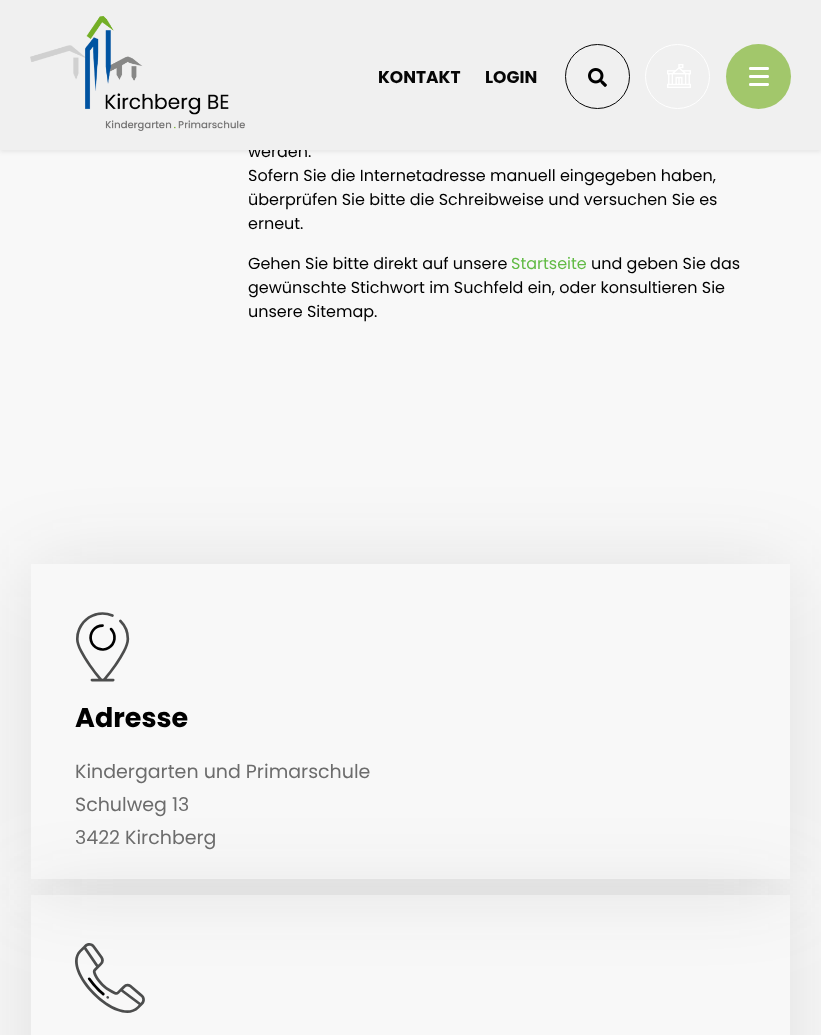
<!DOCTYPE html>
<meta charset="utf-8">
<style>body { margin: 0 } canvas { display: block }</style>
<canvas id="canvas" width="821" height="1035"></canvas>
<img id="img1" src="img_05.png" hidden>
<img id="img2" src="img_06.png" hidden>
<img id="img3" src="img_04.png" hidden>
<img id="img4" src="img_01.png" hidden>
<img id="img5" src="img_03.png" hidden>
<img id="img6" src="img_02.png" hidden>
<script>
window.onload = function () {
	const canvas = document.getElementById("canvas");
	const ctx = canvas.getContext("2d");
	ctx.miterLimit = 4;
	ctx.fontKerning = "normal";
	function txt(s, x, y) {
		ctx.fillText(s, x, y);
	}
	function fill(x, y, w, h) {
		ctx.fillRect(x, y, w, h);
	}
	function img(id, x, y, w, h) {
		ctx.drawImage(document.getElementById(id), x, y, w, h);
	}

	ctx.fillStyle = "#F8F8F8";
	fill(0, 0, 821, 1035);
	ctx.fillStyle = "rgba(0, 0, 0, 0.07)";
	ctx.filter = "blur(2px)";
	ctx.beginPath();
	ctx.rect(0, 2, 821, 150);
	ctx.fill();
	ctx.filter = "none";
	ctx.save();
	ctx.beginPath();
	ctx.moveTo(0, 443);
	ctx.lineTo(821, 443);
	ctx.lineTo(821, 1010);
	ctx.lineTo(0, 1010);
	ctx.closePath();
	ctx.moveTo(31, 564);
	ctx.lineTo(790, 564);
	ctx.lineTo(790, 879);
	ctx.lineTo(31, 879);
	ctx.closePath();
	ctx.clip("evenodd");
	ctx.fillStyle = "rgba(40, 40, 40, 0.12)";
	ctx.filter = "blur(41.5px)";
	ctx.beginPath();
	ctx.rect(31, 569, 759, 315);
	ctx.fill();
	ctx.filter = "none";
	ctx.restore();
	img("img1", 76, 612, 54, 70);
	ctx.save();
	ctx.beginPath();
	ctx.moveTo(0, 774);
	ctx.lineTo(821, 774);
	ctx.lineTo(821, 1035);
	ctx.lineTo(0, 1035);
	ctx.closePath();
	ctx.moveTo(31, 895);
	ctx.lineTo(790, 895);
	ctx.lineTo(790, 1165);
	ctx.lineTo(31, 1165);
	ctx.closePath();
	ctx.clip("evenodd");
	ctx.fillStyle = "rgba(40, 40, 40, 0.12)";
	ctx.filter = "blur(41.5px)";
	ctx.beginPath();
	ctx.rect(31, 900, 759, 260);
	ctx.fill();
	ctx.filter = "none";
	ctx.restore();
	img("img2", 75, 943, 70, 70);
	ctx.font = "16px Poppins";
	ctx.fillStyle = "#000000";
	txt("werden.", 248, 157);
	ctx.fillStyle = "#F0F0F0";
	fill(0, 0, 821, 150);
	ctx.fillStyle = "#A2C76B";
	ctx.beginPath();
	ctx.arc(758.5, 76.5, 32.5, 0, Math.PI * 2);
	ctx.fill();
	img("img3", 749, 67, 20, 19);
	img("img4", 30, 16, 215, 115);
	ctx.beginPath();
	ctx.arc(677.5, 76.5, 32, 0, Math.PI * 2);
	ctx.strokeStyle = "#FFFFFF";
	ctx.stroke();
	img("img5", 667, 64, 24, 24);
	ctx.beginPath();
	ctx.arc(597.5, 76.5, 32, 0, Math.PI * 2);
	ctx.strokeStyle = "#060606";
	ctx.stroke();
	img("img6", 588, 68, 19, 19);
	ctx.font = "bold 17px Poppins";
	ctx.fillStyle = "#060606";
	txt("LOGIN", 485, 83);
	txt("KONTAKT", 378, 83);
	ctx.font = "16px Poppins";
	ctx.fillStyle = "#000000";
	txt("Sofern Sie die Internetadresse manuell eingegeben haben,", 248, 181);
	txt("überprüfen Sie bitte die Schreibweise und versuchen Sie es", 248, 205);
	txt("erneut.", 248, 229);
	txt("Gehen Sie bitte direkt auf unsere", 248, 269);
	ctx.fillStyle = "#63BB46";
	txt("Startseite", 511, 269);
	ctx.fillStyle = "#000000";
	txt("und geben Sie das", 591, 269);
	txt("gewünschte Stichwort im Suchfeld ein, oder konsultieren Sie", 248, 293);
	txt("unsere Sitemap.", 248, 317);
	ctx.font = "bold 27px Poppins";
	txt("Adresse", 75, 727);
	ctx.font = "19px Poppins";
	ctx.fillStyle = "#6C6C6C";
	txt("Kindergarten und Primarschule", 75, 778);
	txt("Schulweg 13", 75, 811);
	txt("3422 Kirchberg", 75, 844);
};
</script>
